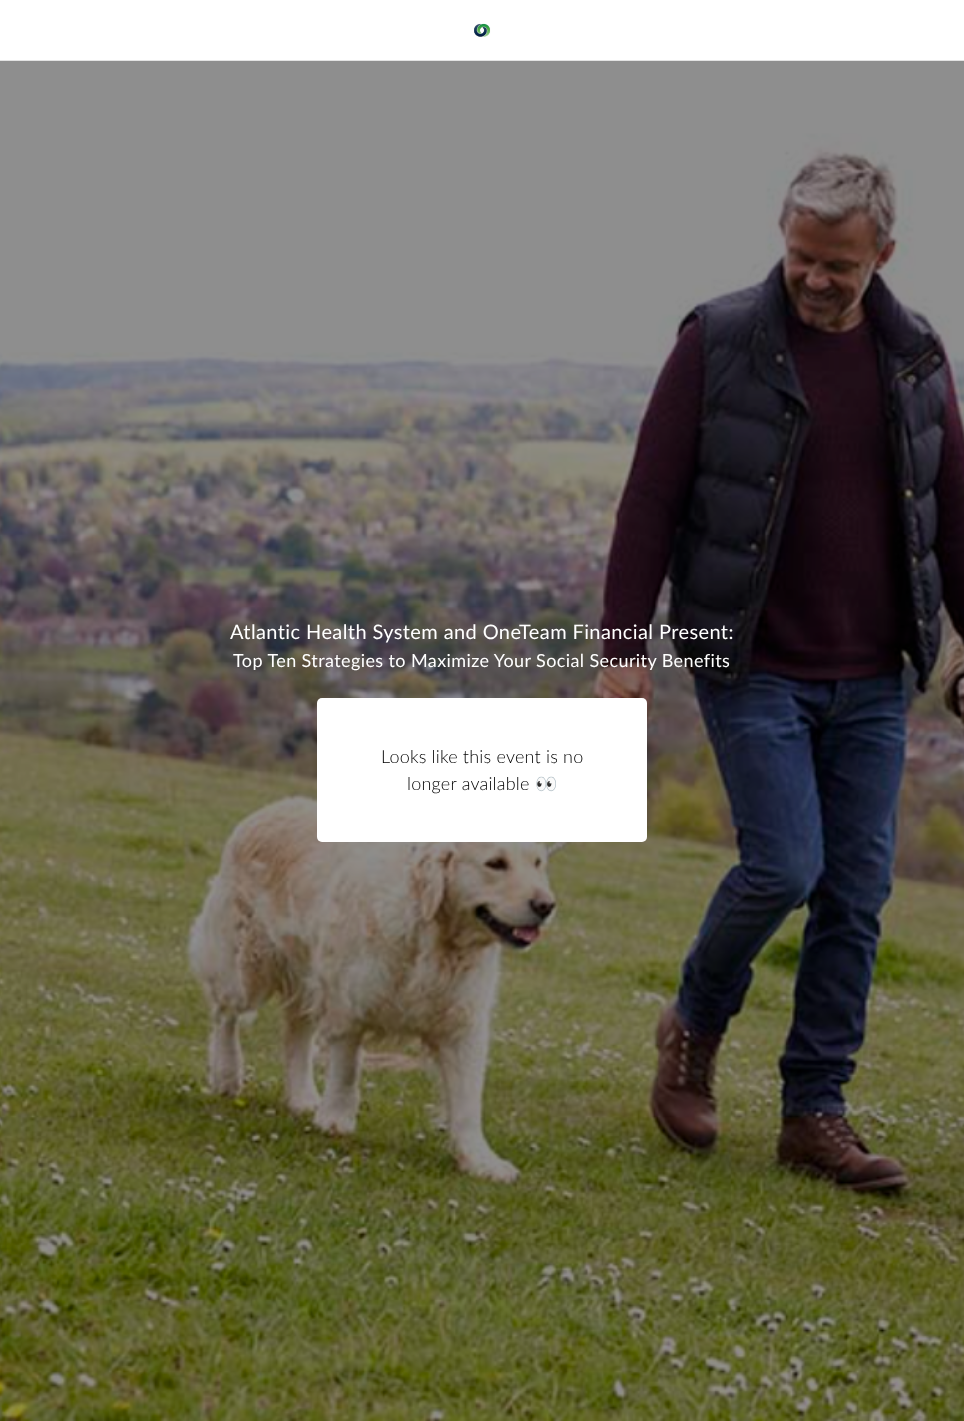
<!DOCTYPE html>
<meta charset="utf-8">
<style>body { margin: 0 } canvas { display: block }</style>
<canvas id="canvas" width="964" height="1421"></canvas>
<img id="img1" src="img_01.png" hidden>
<img id="img2" src="img_02.png" hidden>
<script>
window.onload = function () {
	const canvas = document.getElementById("canvas");
	const ctx = canvas.getContext("2d");
	ctx.miterLimit = 4;
	ctx.fontKerning = "normal";
	function txt(s, x, y) {
		ctx.fillText(s, x, y);
	}
	function fill(x, y, w, h) {
		ctx.fillRect(x, y, w, h);
	}
	function round(x, y, w, h, r) {
		ctx.beginPath();
		ctx.roundRect(x, y, w, h, r);
		ctx.fill();
	}
	function img(id, x, y, w, h) {
		ctx.drawImage(document.getElementById(id), x, y, w, h);
	}

	ctx.fillStyle = "#FFFFFF";
	fill(0, 0, 964, 1421);
	ctx.fillStyle = "#E2E2E2";
	fill(0, 60, 964, 1);
	img("img1", 474, 23, 17, 14);
	img("img2", 0, 61, 964, 1360);
	ctx.fillStyle = "#FFFFFF";
	round(317, 698, 330, 144, 5);
	ctx.letterSpacing = "0.4px";
	ctx.font = "20px Lato";
	txt("Atlantic Health System and OneTeam Financial Present:", 230, 639);
	ctx.font = "18px Lato";
	txt("Top Ten Strategies to Maximize Your Social Security Benefits", 233, 667);
	ctx.letterSpacing = "0.2px";
	ctx.font = "300 18px Lato";
	ctx.fillStyle = "#000000";
	txt("Looks like this event is no", 381, 763);
	txt("longer available", 407, 790);
	ctx.font = "18px Noto Color Emoji";
	txt("👀", 535, 790);
};
</script>
